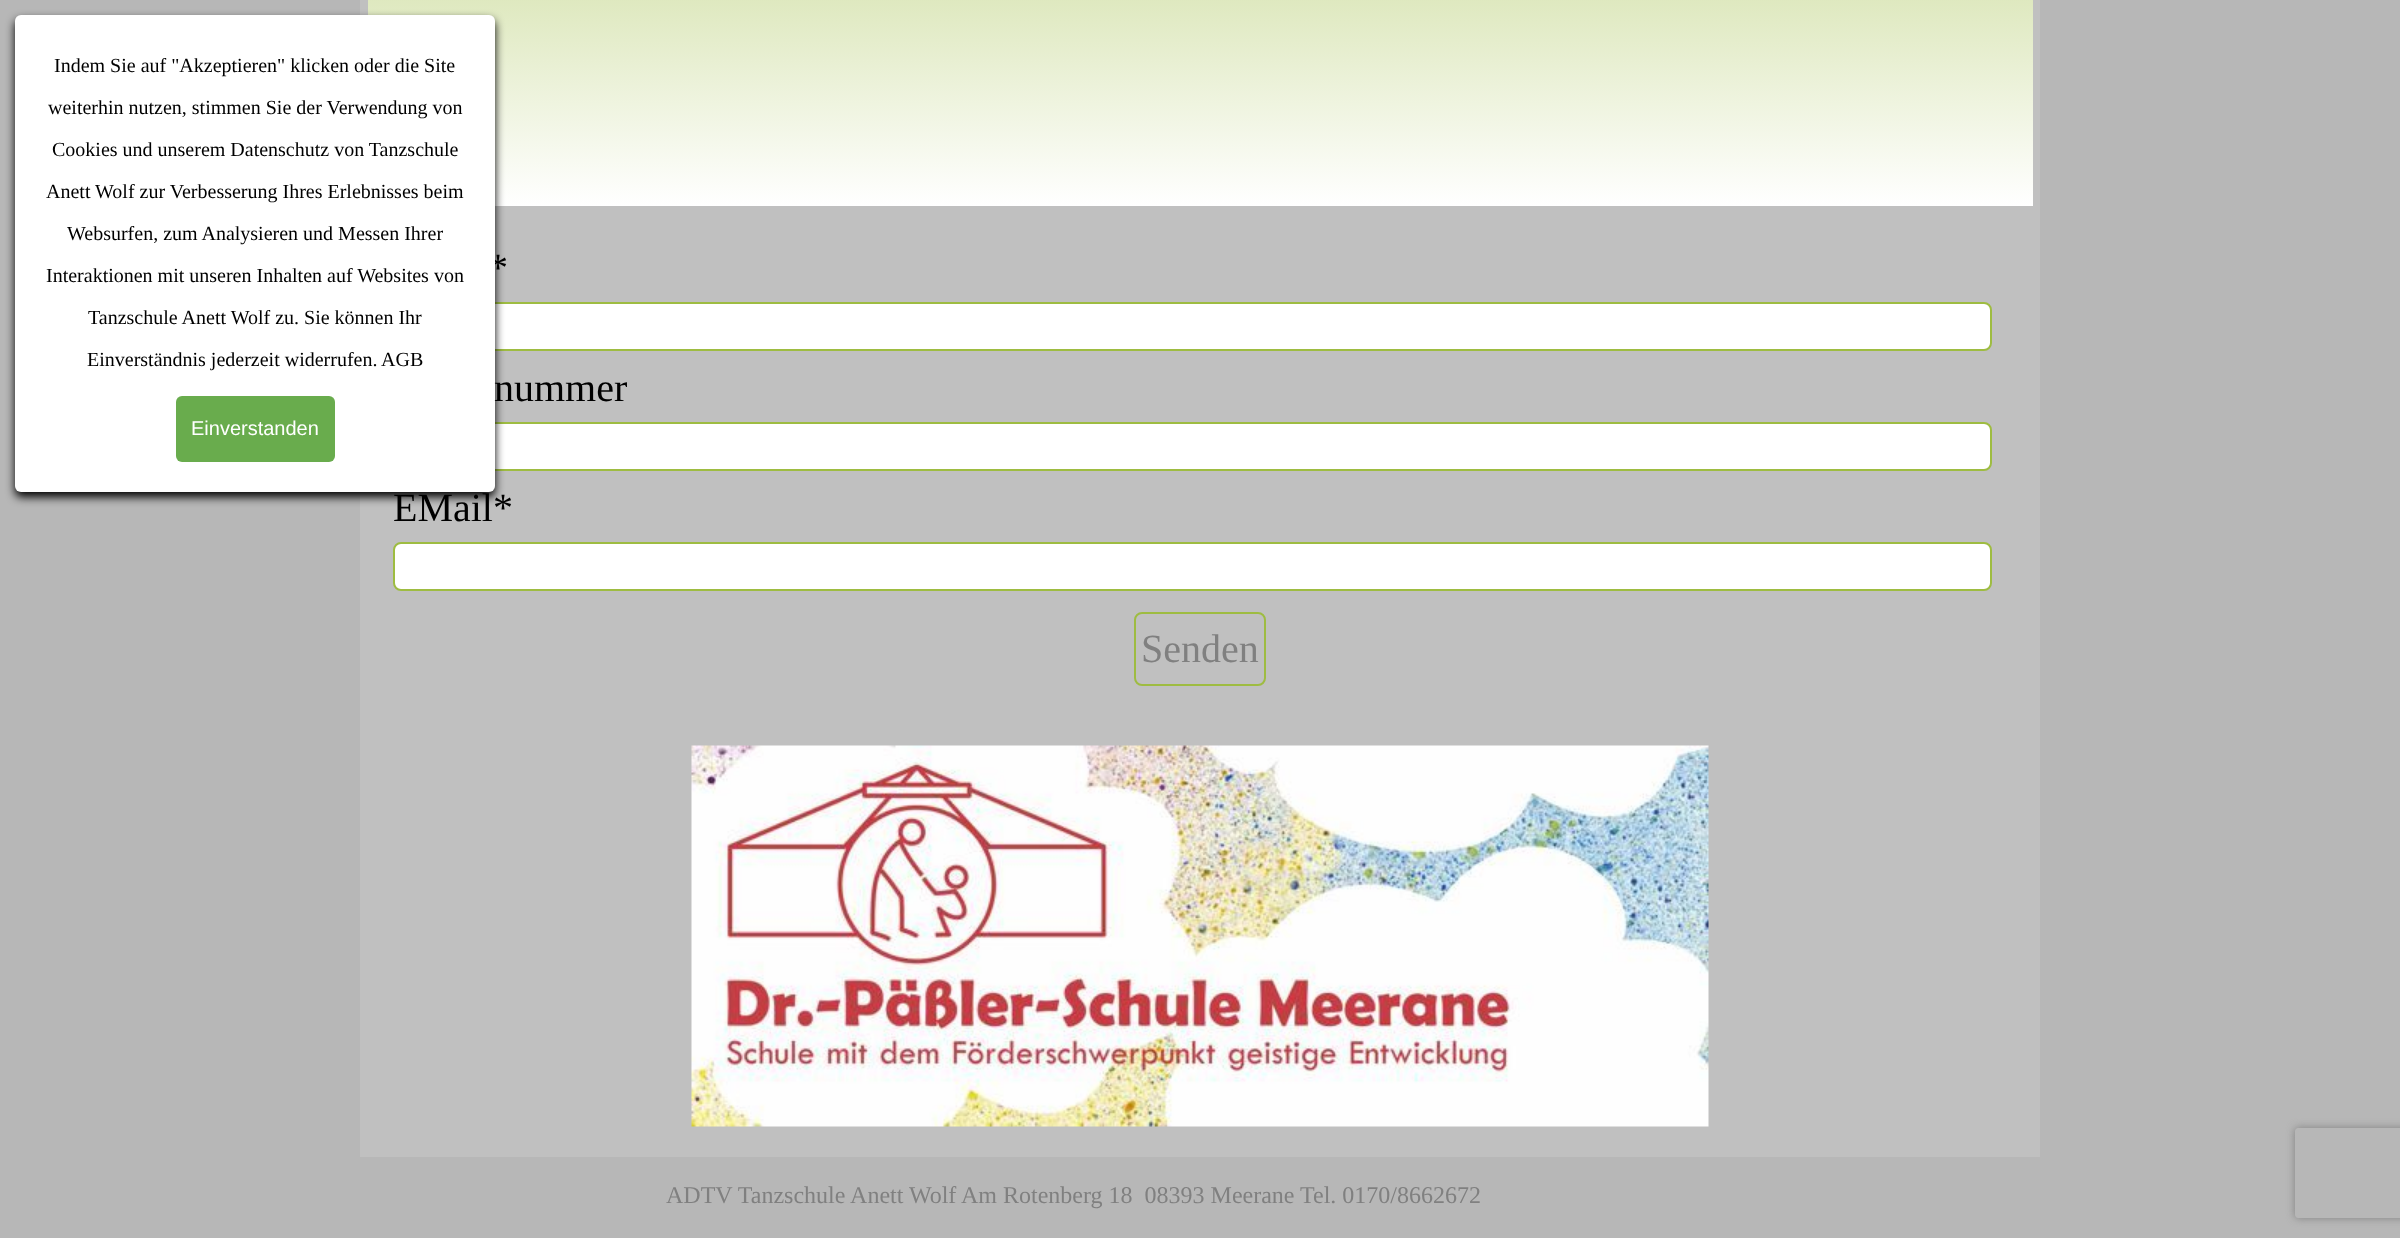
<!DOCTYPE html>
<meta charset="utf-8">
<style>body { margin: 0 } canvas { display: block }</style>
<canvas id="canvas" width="2400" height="1238"></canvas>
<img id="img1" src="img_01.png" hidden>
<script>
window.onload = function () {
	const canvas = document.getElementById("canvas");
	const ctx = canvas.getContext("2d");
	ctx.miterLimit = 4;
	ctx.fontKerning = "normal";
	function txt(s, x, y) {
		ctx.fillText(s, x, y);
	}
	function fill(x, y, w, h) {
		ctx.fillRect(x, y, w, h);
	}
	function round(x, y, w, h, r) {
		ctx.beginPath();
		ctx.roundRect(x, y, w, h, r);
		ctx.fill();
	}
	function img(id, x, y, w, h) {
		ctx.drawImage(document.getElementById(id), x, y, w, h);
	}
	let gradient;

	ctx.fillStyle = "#B7B7B7";
	fill(0, 0, 2400, 1238);
	ctx.fillStyle = "#C0C0C0";
	fill(360, 0, 1680, 1157);
	gradient = ctx.createLinearGradient(1200, -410, 1200, 206);
	gradient.addColorStop(0, "#9EBC41");
	gradient.addColorStop(1, "#FFFFFF");
	ctx.fillStyle = gradient;
	fill(368, 0, 1665, 206);
	ctx.fillStyle = "#FFFFFF";
	ctx.beginPath();
	ctx.roundRect(394, 303, 1597, 47, 7);
	ctx.fill();
	ctx.strokeStyle = "#9EBC41";
	ctx.lineWidth = 2;
	ctx.stroke();
	ctx.beginPath();
	ctx.roundRect(394, 423, 1597, 47, 7);
	ctx.fill();
	ctx.stroke();
	ctx.fillStyle = "#000000";
	ctx.filter = "blur(5px)";
	ctx.beginPath();
	ctx.roundRect(15, 20, 480, 477, 6);
	ctx.fill();
	ctx.filter = "none";
	ctx.fillStyle = "#FFFFFF";
	ctx.beginPath();
	ctx.roundRect(394, 543, 1597, 47, 7);
	ctx.fill();
	ctx.stroke();
	ctx.beginPath();
	ctx.roundRect(1135, 613, 130, 72, 7);
	ctx.stroke();
	img("img1", 691, 745, 1018, 382);
	ctx.save();
	ctx.beginPath();
	ctx.moveTo(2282, 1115);
	ctx.lineTo(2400, 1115);
	ctx.lineTo(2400, 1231);
	ctx.lineTo(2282, 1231);
	ctx.closePath();
	ctx.moveTo(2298, 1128);
	ctx.lineTo(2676, 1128);
	ctx.bezierCurveTo(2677.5, 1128, 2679, 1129.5, 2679, 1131);
	ctx.lineTo(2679, 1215);
	ctx.bezierCurveTo(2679, 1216.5, 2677.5, 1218, 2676, 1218);
	ctx.lineTo(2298, 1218);
	ctx.bezierCurveTo(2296.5, 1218, 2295, 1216.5, 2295, 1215);
	ctx.lineTo(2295, 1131);
	ctx.bezierCurveTo(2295, 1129.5, 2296.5, 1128, 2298, 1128);
	ctx.closePath();
	ctx.clip("evenodd");
	ctx.fillStyle = "#808080";
	ctx.filter = "blur(4px)";
	ctx.beginPath();
	ctx.roundRect(2295, 1128, 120, 90, 3);
	ctx.fill();
	ctx.filter = "none";
	ctx.restore();
	ctx.font = "40px Liberation Serif";
	ctx.fillStyle = "#000000";
	txt("*", 488, 281);
	ctx.fillStyle = "#FFFFFF";
	round(15, 15, 480, 477, 6);
	ctx.fillStyle = "#69AC4D";
	round(176, 396, 159, 66, 6);
	ctx.font = "20px Liberation Sans";
	ctx.fillStyle = "#FFFFFF";
	txt("Einverstanden", 191, 435);
	ctx.font = "20px Liberation Serif";
	ctx.fillStyle = "#000000";
	txt("AGB", 381, 366);
	txt("Einverständnis jederzeit widerrufen.", 87, 366);
	txt("Tanzschule Anett Wolf zu. Sie können Ihr", 88, 324);
	txt("Interaktionen mit unseren Inhalten auf Websites von", 46, 282);
	txt("Websurfen, zum Analysieren und Messen Ihrer", 67, 240);
	txt("Anett Wolf zur Verbesserung Ihres Erlebnisses beim", 46, 198);
	txt("Cookies und unserem Datenschutz von Tanzschule", 52, 156);
	txt("weiterhin nutzen, stimmen Sie der Verwendung von", 48, 114);
	txt("Indem Sie auf \"Akzeptieren\" klicken oder die Site", 54, 72);
	ctx.font = "40px Liberation Serif";
	txt("nummer", 494, 401);
	txt("EMail*", 393, 521);
	ctx.fillStyle = "#808080";
	txt("Senden", 1141, 662);
	ctx.font = "24px Liberation Serif";
	txt("ADTV Tanzschule Anett Wolf Am Rotenberg 18  08393 Meerane Tel. 0170/8662672", 666, 1203);
};
</script>
